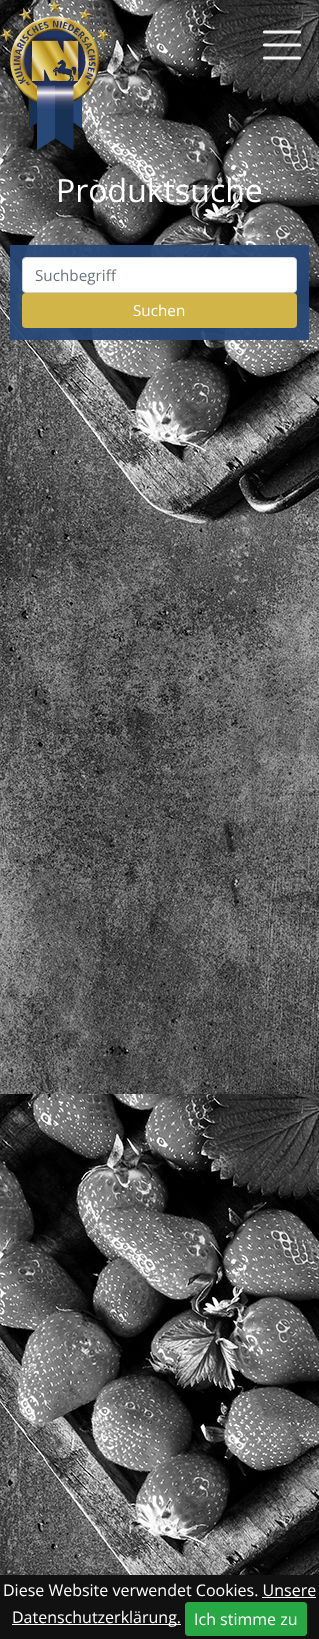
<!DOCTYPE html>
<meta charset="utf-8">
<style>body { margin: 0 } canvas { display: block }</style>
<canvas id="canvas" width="319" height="1639"></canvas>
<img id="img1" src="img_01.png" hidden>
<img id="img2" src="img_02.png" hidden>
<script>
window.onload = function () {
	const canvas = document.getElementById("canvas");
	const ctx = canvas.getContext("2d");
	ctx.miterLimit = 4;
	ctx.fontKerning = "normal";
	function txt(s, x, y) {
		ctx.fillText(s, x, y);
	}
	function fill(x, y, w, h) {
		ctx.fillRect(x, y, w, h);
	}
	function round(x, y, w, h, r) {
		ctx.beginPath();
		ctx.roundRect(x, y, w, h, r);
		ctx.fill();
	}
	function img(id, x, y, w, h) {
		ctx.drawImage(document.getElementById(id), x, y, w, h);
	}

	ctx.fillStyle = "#FFFFFF";
	fill(0, 0, 319, 1639);
	img("img1", 0, 0, 319, 1575);
	img("img2", 0, 0, 110, 150);
	ctx.beginPath();
	ctx.roundRect(245.5, 0.5, 73, 73, 3.5);
	ctx.strokeStyle = "rgba(0, 0, 0, 0.1)";
	ctx.stroke();
	ctx.beginPath();
	ctx.moveTo(264.5, 32);
	ctx.lineTo(299.5, 32);
	ctx.moveTo(264.5, 45);
	ctx.lineTo(299.5, 45);
	ctx.moveTo(264.5, 58);
	ctx.lineTo(299.5, 58);
	ctx.strokeStyle = "rgba(255, 255, 255, 0.95)";
	ctx.lineWidth = 3.2;
	ctx.lineCap = "round";
	ctx.stroke();
	ctx.fillStyle = "rgba(40, 72, 120, 0.95)";
	fill(10, 245, 299, 95);
	ctx.fillStyle = "#FFFFFF";
	ctx.beginPath();
	ctx.roundRect(22.5, 257.5, 274, 35, 3.5);
	ctx.fill();
	ctx.strokeStyle = "#CED4DA";
	ctx.lineWidth = 1;
	ctx.stroke();
	ctx.fillStyle = "#D1B548";
	round(22, 293, 275, 35, 4);
	ctx.fillStyle = "#111111";
	fill(0, 1575, 319, 64);
	ctx.fillStyle = "#FFFFFF";
	fill(262, 1597, 54, 1);
	fill(12, 1624, 169, 1);
	ctx.fillStyle = "#28A745";
	ctx.beginPath();
	ctx.roundRect(185.5, 1602.5, 121, 33, 2.5);
	ctx.fill();
	ctx.strokeStyle = "#28A745";
	ctx.stroke();
	ctx.font = "32px Open Sans";
	ctx.fillStyle = "#FFFFFF";
	txt("Produktsuche", 56, 202);
	ctx.font = "15.25px Open Sans";
	ctx.fillStyle = "#6C757D";
	txt("Suchbegriff", 35, 281);
	ctx.fillStyle = "#FFFFFF";
	txt("Suchen", 133, 316);
	ctx.font = "16px Open Sans";
	txt("Diese Website verwendet Cookies. Unsere", 3, 1596);
	txt("Datenschutzerklärung.", 12, 1623);
	txt("Ich stimme zu", 194, 1625);
};
</script>
